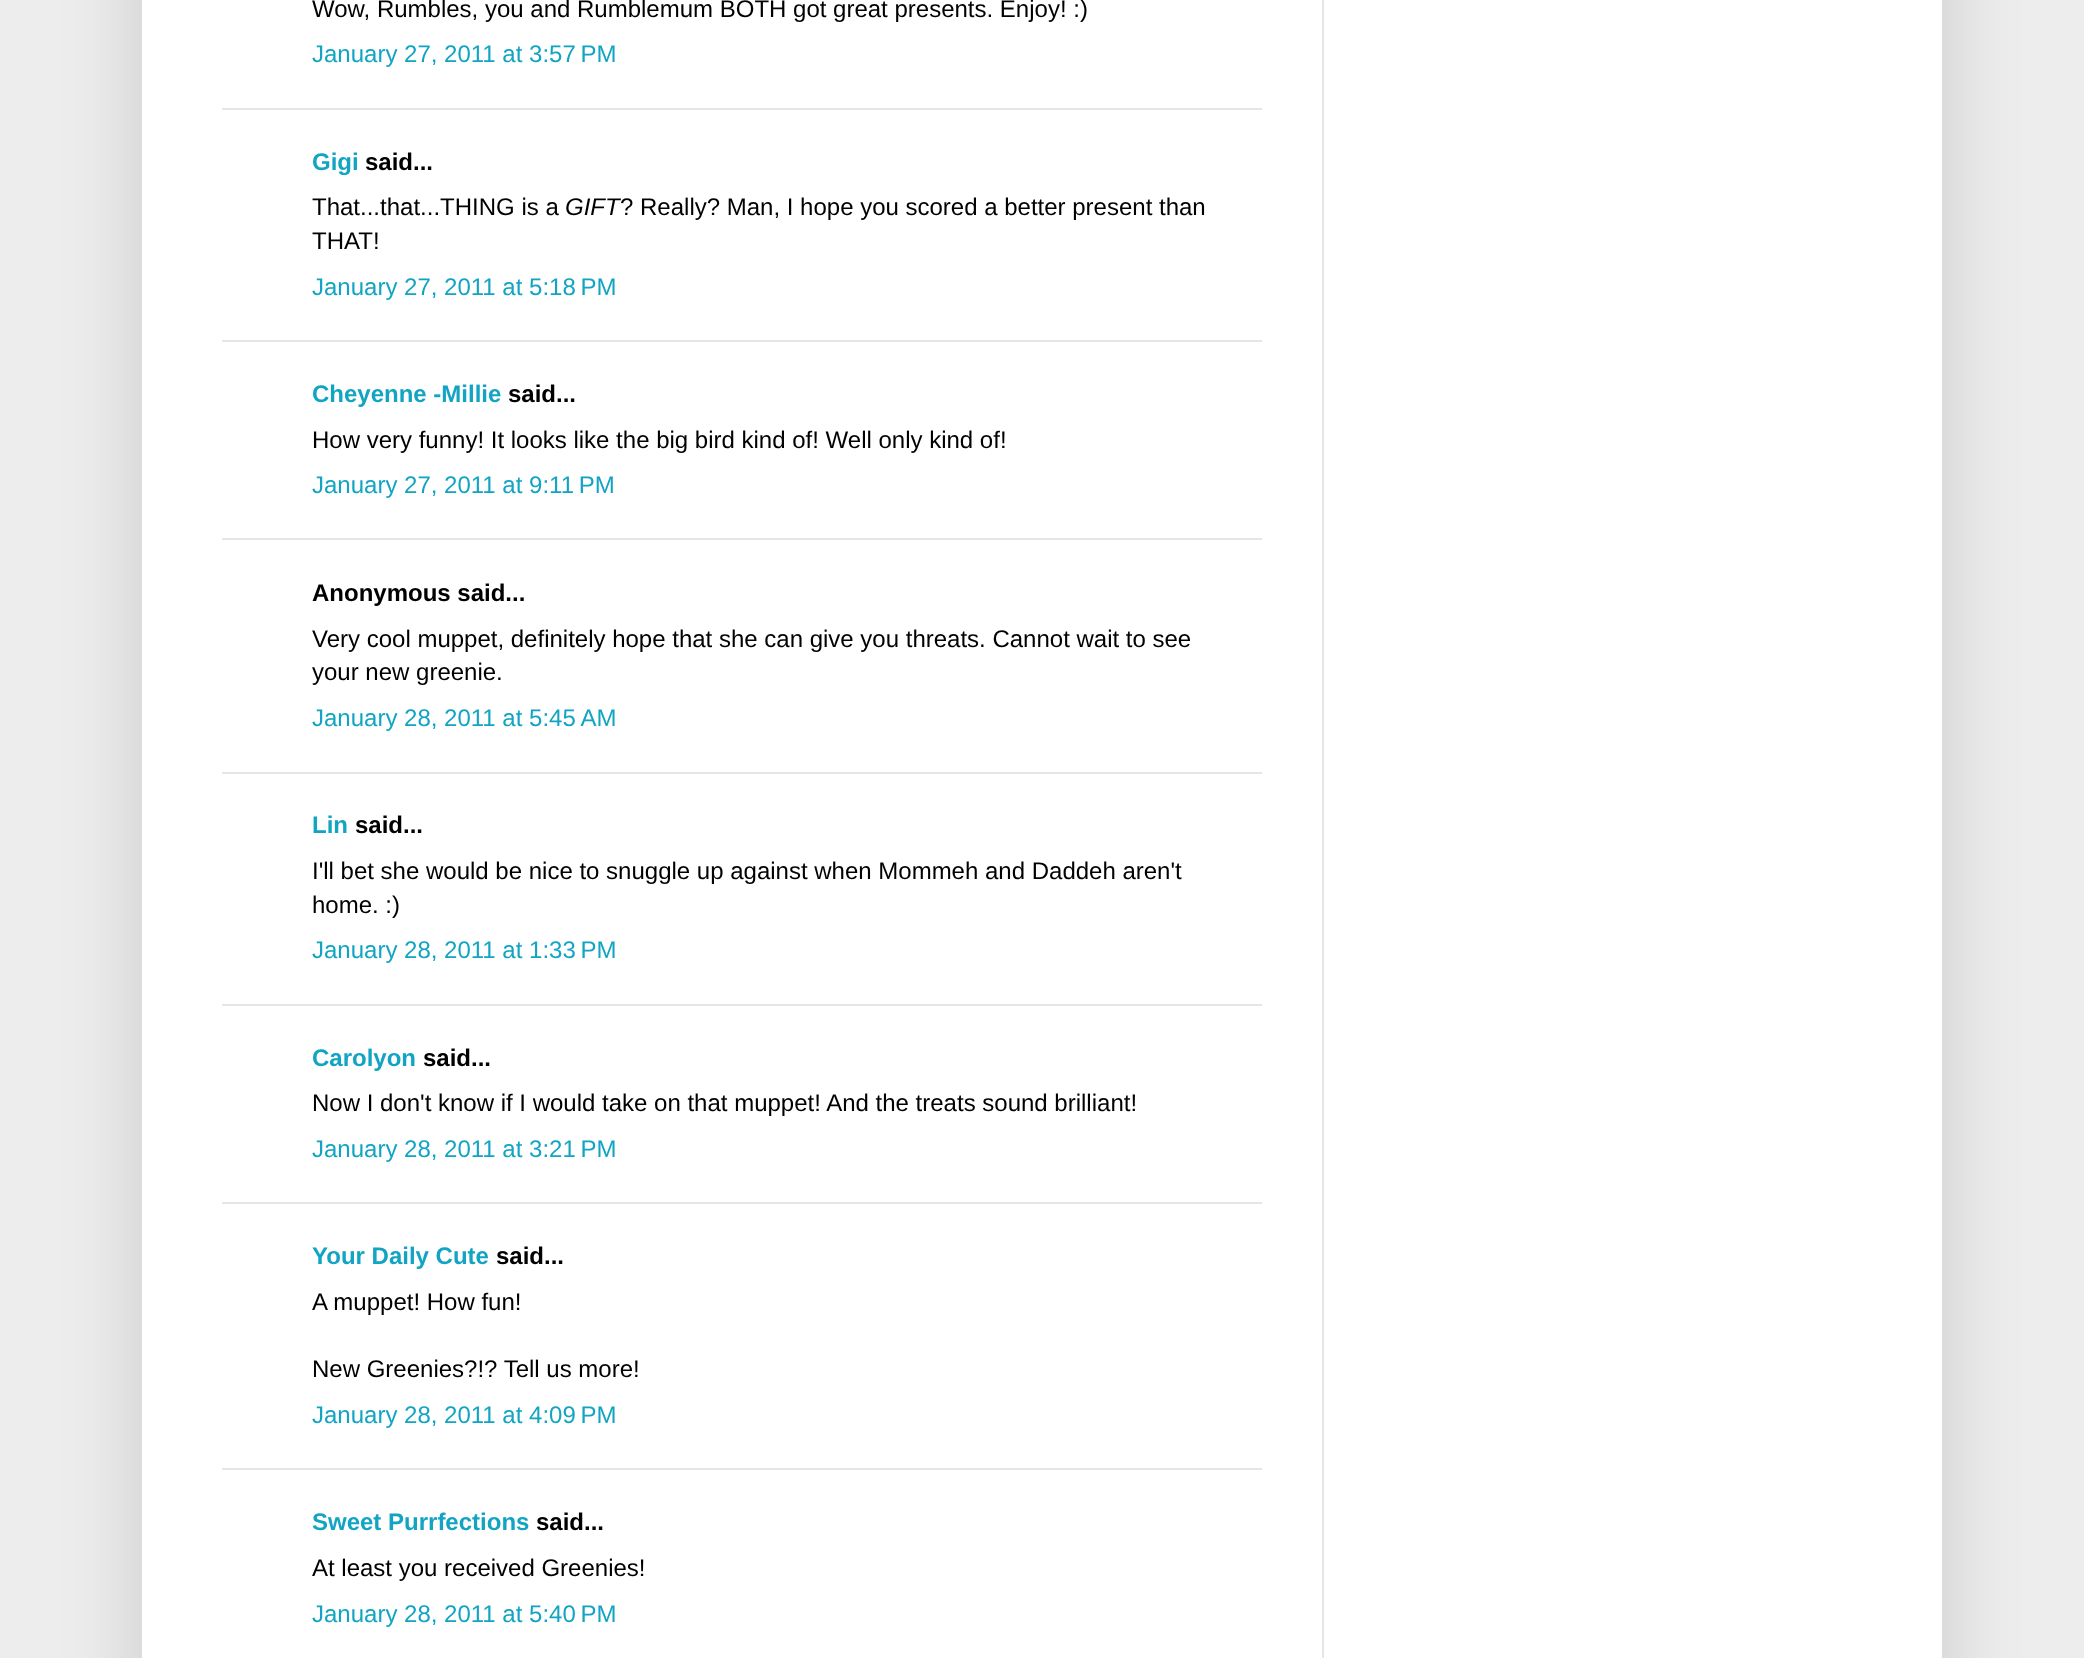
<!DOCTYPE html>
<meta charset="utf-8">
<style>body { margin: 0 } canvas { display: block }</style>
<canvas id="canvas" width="2084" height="1658"></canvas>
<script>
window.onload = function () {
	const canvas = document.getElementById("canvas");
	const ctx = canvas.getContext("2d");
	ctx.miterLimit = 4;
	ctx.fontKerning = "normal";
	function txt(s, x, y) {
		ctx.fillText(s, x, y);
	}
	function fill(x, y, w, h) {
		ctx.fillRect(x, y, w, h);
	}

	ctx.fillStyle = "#EDEDED";
	fill(0, 0, 2084, 1658);
	ctx.fillStyle = "rgba(0, 0, 0, 0.15)";
	ctx.filter = "blur(40px)";
	ctx.beginPath();
	ctx.rect(142, -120, 1800, 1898);
	ctx.fill();
	ctx.filter = "none";
	ctx.fillStyle = "#FFFFFF";
	fill(142, 0, 1800, 1658);
	ctx.fillStyle = "#E6E6E6";
	fill(222, 108, 1040, 2);
	fill(222, 340, 1040, 2);
	fill(222, 538, 1040, 2);
	fill(222, 772, 1040, 2);
	fill(222, 1004, 1040, 2);
	fill(222, 1202, 1040, 2);
	fill(222, 1468, 1040, 2);
	fill(1322, 0, 2, 1658);
	ctx.font = "24px Liberation Sans";
	ctx.fillStyle = "#000000";
	txt("Wow, Rumbles, you and Rumblemum BOTH got great presents. Enjoy! :)", 312, 17);
	ctx.fillStyle = "#11A4C3";
	txt("January 27, 2011 at 3:57 PM", 312, 62);
	ctx.font = "bold 24px Liberation Sans";
	txt("Gigi", 312, 170);
	ctx.fillStyle = "#000000";
	txt("said...", 365, 170);
	ctx.font = "24px Liberation Sans";
	txt("That...that...THING is a", 312, 215);
	ctx.font = "italic 24px Liberation Sans";
	txt("GIFT", 565, 215);
	ctx.font = "24px Liberation Sans";
	txt("? Really? Man, I hope you scored a better present than", 620, 215);
	txt("THAT!", 312, 249);
	ctx.fillStyle = "#11A4C3";
	txt("January 27, 2011 at 5:18 PM", 312, 295);
	ctx.font = "bold 24px Liberation Sans";
	txt("Cheyenne -Millie", 312, 402);
	ctx.fillStyle = "#000000";
	txt("said...", 508, 402);
	ctx.font = "24px Liberation Sans";
	txt("How very funny! It looks like the big bird kind of! Well only kind of!", 312, 448);
	ctx.fillStyle = "#11A4C3";
	txt("January 27, 2011 at 9:11 PM", 312, 493);
	ctx.font = "bold 24px Liberation Sans";
	ctx.fillStyle = "#000000";
	txt("Anonymous said...", 312, 601);
	ctx.font = "24px Liberation Sans";
	txt("Very cool muppet, definitely hope that she can give you threats. Cannot wait to see", 312, 647);
	txt("your new greenie.", 312, 680);
	ctx.fillStyle = "#11A4C3";
	txt("January 28, 2011 at 5:45 AM", 312, 726);
	ctx.font = "bold 24px Liberation Sans";
	txt("Lin", 312, 833);
	ctx.fillStyle = "#000000";
	txt("said...", 355, 833);
	ctx.font = "24px Liberation Sans";
	txt("I'll bet she would be nice to snuggle up against when Mommeh and Daddeh aren't", 312, 879);
	txt("home. :)", 312, 913);
	ctx.fillStyle = "#11A4C3";
	txt("January 28, 2011 at 1:33 PM", 312, 958);
	ctx.font = "bold 24px Liberation Sans";
	txt("Carolyon", 312, 1066);
	ctx.fillStyle = "#000000";
	txt("said...", 423, 1066);
	ctx.font = "24px Liberation Sans";
	txt("Now I don't know if I would take on that muppet! And the treats sound brilliant!", 312, 1111);
	ctx.fillStyle = "#11A4C3";
	txt("January 28, 2011 at 3:21 PM", 312, 1157);
	ctx.font = "bold 24px Liberation Sans";
	txt("Your Daily Cute", 312, 1264);
	ctx.fillStyle = "#000000";
	txt("said...", 496, 1264);
	ctx.font = "24px Liberation Sans";
	txt("A muppet! How fun!", 312, 1310);
	txt("New Greenies?!? Tell us more!", 312, 1377);
	ctx.fillStyle = "#11A4C3";
	txt("January 28, 2011 at 4:09 PM", 312, 1423);
	ctx.font = "bold 24px Liberation Sans";
	txt("Sweet Purrfections", 312, 1530);
	ctx.fillStyle = "#000000";
	txt("said...", 536, 1530);
	ctx.font = "24px Liberation Sans";
	txt("At least you received Greenies!", 312, 1576);
	ctx.fillStyle = "#11A4C3";
	txt("January 28, 2011 at 5:40 PM", 312, 1622);
};
</script>
